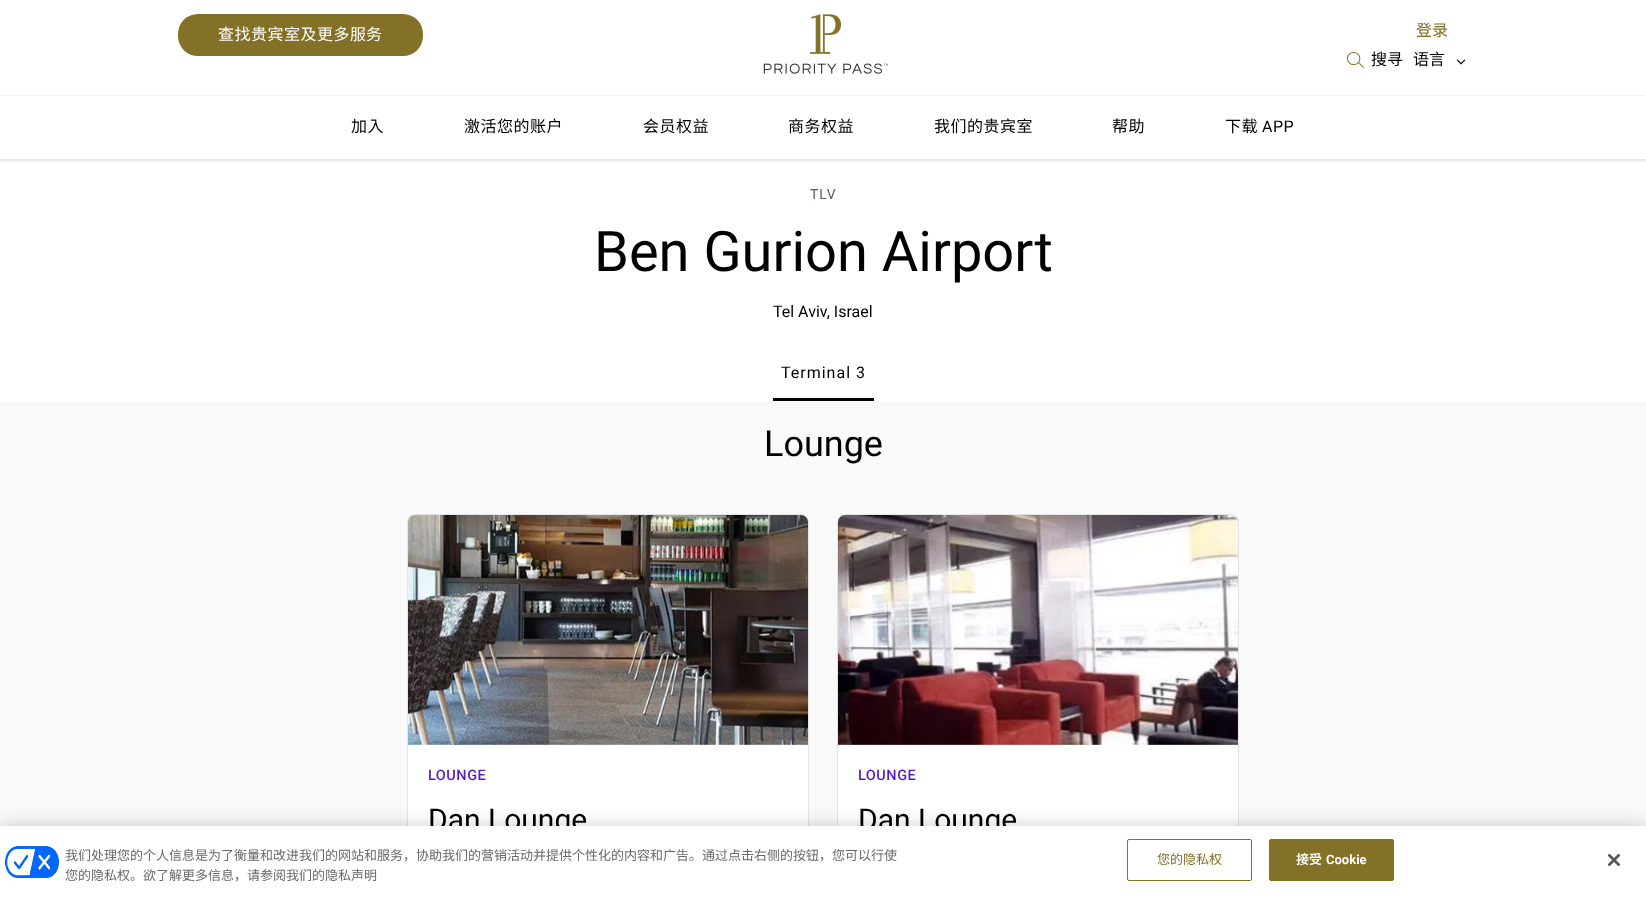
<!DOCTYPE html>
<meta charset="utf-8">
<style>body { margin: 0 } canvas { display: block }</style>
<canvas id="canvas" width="1646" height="897"></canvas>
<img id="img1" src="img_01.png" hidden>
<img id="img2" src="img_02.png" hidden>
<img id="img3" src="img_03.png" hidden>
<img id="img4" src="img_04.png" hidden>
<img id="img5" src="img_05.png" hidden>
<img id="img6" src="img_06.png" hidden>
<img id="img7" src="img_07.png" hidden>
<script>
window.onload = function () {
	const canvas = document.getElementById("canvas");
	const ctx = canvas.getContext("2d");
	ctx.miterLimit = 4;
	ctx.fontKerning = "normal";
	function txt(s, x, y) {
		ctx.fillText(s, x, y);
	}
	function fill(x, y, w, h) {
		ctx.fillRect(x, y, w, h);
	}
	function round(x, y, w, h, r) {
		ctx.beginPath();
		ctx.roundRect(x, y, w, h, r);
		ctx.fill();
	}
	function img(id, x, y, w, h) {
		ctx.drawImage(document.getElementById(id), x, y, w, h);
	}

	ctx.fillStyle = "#FFFFFF";
	fill(0, 0, 1646, 897);
	ctx.save();
	ctx.beginPath();
	ctx.rect(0, 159, 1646, 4);
	ctx.clip();
	ctx.fillStyle = "#E3E1E1";
	ctx.filter = "blur(1px)";
	ctx.beginPath();
	ctx.rect(0, 2, 1646, 159);
	ctx.fill();
	ctx.filter = "none";
	ctx.restore();
	ctx.fillStyle = "#EEEEEE";
	fill(0, 95, 1646, 1);
	ctx.fillStyle = "#827127";
	round(178, 14, 245, 42, 20);
	img("img1", 763, 14, 125, 60);
	img("img2", 1347, 52, 17, 16);
	img("img3", 1456, 59, 10, 6);
	ctx.fillStyle = "#F9F9F9";
	fill(0, 401, 1646, 425);
	ctx.fillStyle = "#000000";
	fill(773, 398, 101, 3);
	ctx.fillStyle = "#FFFFFF";
	ctx.beginPath();
	ctx.roundRect(407.5, 514.5, 401, 335, 7.5);
	ctx.fill();
	ctx.strokeStyle = "#E3E4E3";
	ctx.stroke();
	img("img4", 408, 515, 400, 230);
	ctx.beginPath();
	ctx.roundRect(837.5, 514.5, 401, 335, 7.5);
	ctx.fill();
	ctx.stroke();
	img("img5", 838, 515, 400, 230);
	ctx.fillStyle = "rgba(0, 0, 0, 0.2)";
	ctx.filter = "blur(9px)";
	ctx.beginPath();
	ctx.rect(0, 826, 1646, 71);
	ctx.fill();
	ctx.filter = "none";
	ctx.letterSpacing = "0.5px";
	ctx.font = "16px Noto Sans CJK SC";
	ctx.fillStyle = "#FFFFFF";
	txt("查找贵宾室及更多", 218, 40);
	ctx.font = "16px Noto Sans JP";
	txt("服", 350, 40);
	ctx.font = "16px Noto Sans CJK SC";
	txt("务", 366, 40);
	ctx.letterSpacing = "0px";
	ctx.fillStyle = "#827127";
	txt("登录", 1416, 36);
	ctx.fillStyle = "#000000";
	txt("搜寻", 1371, 65);
	txt("语言", 1413, 65);
	ctx.letterSpacing = "0.5px";
	ctx.font = "16px Noto Sans JP";
	txt("加入", 351, 132);
	ctx.font = "16px Noto Sans CJK SC";
	txt("激活您的账户", 464, 132);
	txt("会员权益", 643, 132);
	txt("商务权益", 788, 132);
	txt("我们的贵宾室", 934, 132);
	ctx.font = "16px Noto Sans JP";
	txt("帮助", 1112, 132);
	ctx.font = "16px Noto Sans CJK SC";
	txt("下载", 1225, 132);
	ctx.font = "16px Roboto";
	txt("APP", 1262, 132);
	ctx.letterSpacing = "1px";
	ctx.font = "14px Roboto";
	ctx.fillStyle = "#5B5E6B";
	txt("TLV", 810, 199);
	ctx.letterSpacing = "0px";
	ctx.font = "56px Roboto";
	ctx.fillStyle = "#000000";
	txt("Ben Gurion Airport", 594, 271);
	ctx.font = "16px Roboto";
	txt("Tel Aviv, Israel", 773, 317);
	ctx.letterSpacing = "1px";
	txt("Terminal 3", 781, 378);
	ctx.letterSpacing = "0px";
	ctx.font = "36px Roboto";
	txt("Lounge", 764, 456);
	ctx.letterSpacing = "0.5px";
	ctx.font = "500 14.5px Roboto";
	ctx.fillStyle = "#541CC4";
	txt("LOUNGE", 428, 780);
	ctx.letterSpacing = "0px";
	ctx.font = "30px Roboto";
	ctx.fillStyle = "#000000";
	txt("Dan Lounge", 428, 830);
	ctx.letterSpacing = "0.5px";
	ctx.font = "500 14.5px Roboto";
	ctx.fillStyle = "#541CC4";
	txt("LOUNGE", 858, 780);
	ctx.letterSpacing = "0px";
	ctx.font = "30px Roboto";
	ctx.fillStyle = "#000000";
	txt("Dan Lounge", 858, 830);
	ctx.fillStyle = "#FFFFFF";
	fill(0, 826, 1646, 71);
	img("img6", 4, 846, 56, 32);
	ctx.font = "13px Noto Sans CJK SC";
	ctx.fillStyle = "#696969";
	txt("我们处理您的个人信息是为了衡量和", 65, 860);
	ctx.font = "13px Noto Sans JP";
	txt("改", 273, 860);
	ctx.font = "13px Noto Sans CJK SC";
	txt("进我们的网站和", 286, 860);
	ctx.font = "13px Noto Sans JP";
	txt("服", 377, 860);
	ctx.font = "13px Noto Sans CJK SC";
	txt("务，协助我们的营销活动并提供个性化的内容和广告。通过点击右侧的按钮，您可以行使", 390, 860);
	txt("您的隐私权。欲了解更多信息，请参阅我们的隐私声明", 65, 880);
	ctx.beginPath();
	ctx.roundRect(1127.5, 839.5, 124, 41, 1.5);
	ctx.strokeStyle = "#827127";
	ctx.stroke();
	ctx.fillStyle = "#827127";
	txt("您的隐私权", 1157, 864);
	ctx.beginPath();
	ctx.roundRect(1269.5, 839.5, 124, 41, 1.5);
	ctx.fill();
	ctx.stroke();
	ctx.font = "600 13px Noto Sans JP";
	ctx.fillStyle = "#FFFFFF";
	txt("接受", 1296, 864);
	ctx.font = "bold 13px Roboto";
	txt("Cookie", 1326, 864);
	img("img7", 1608, 854, 12, 12);
};
</script>
